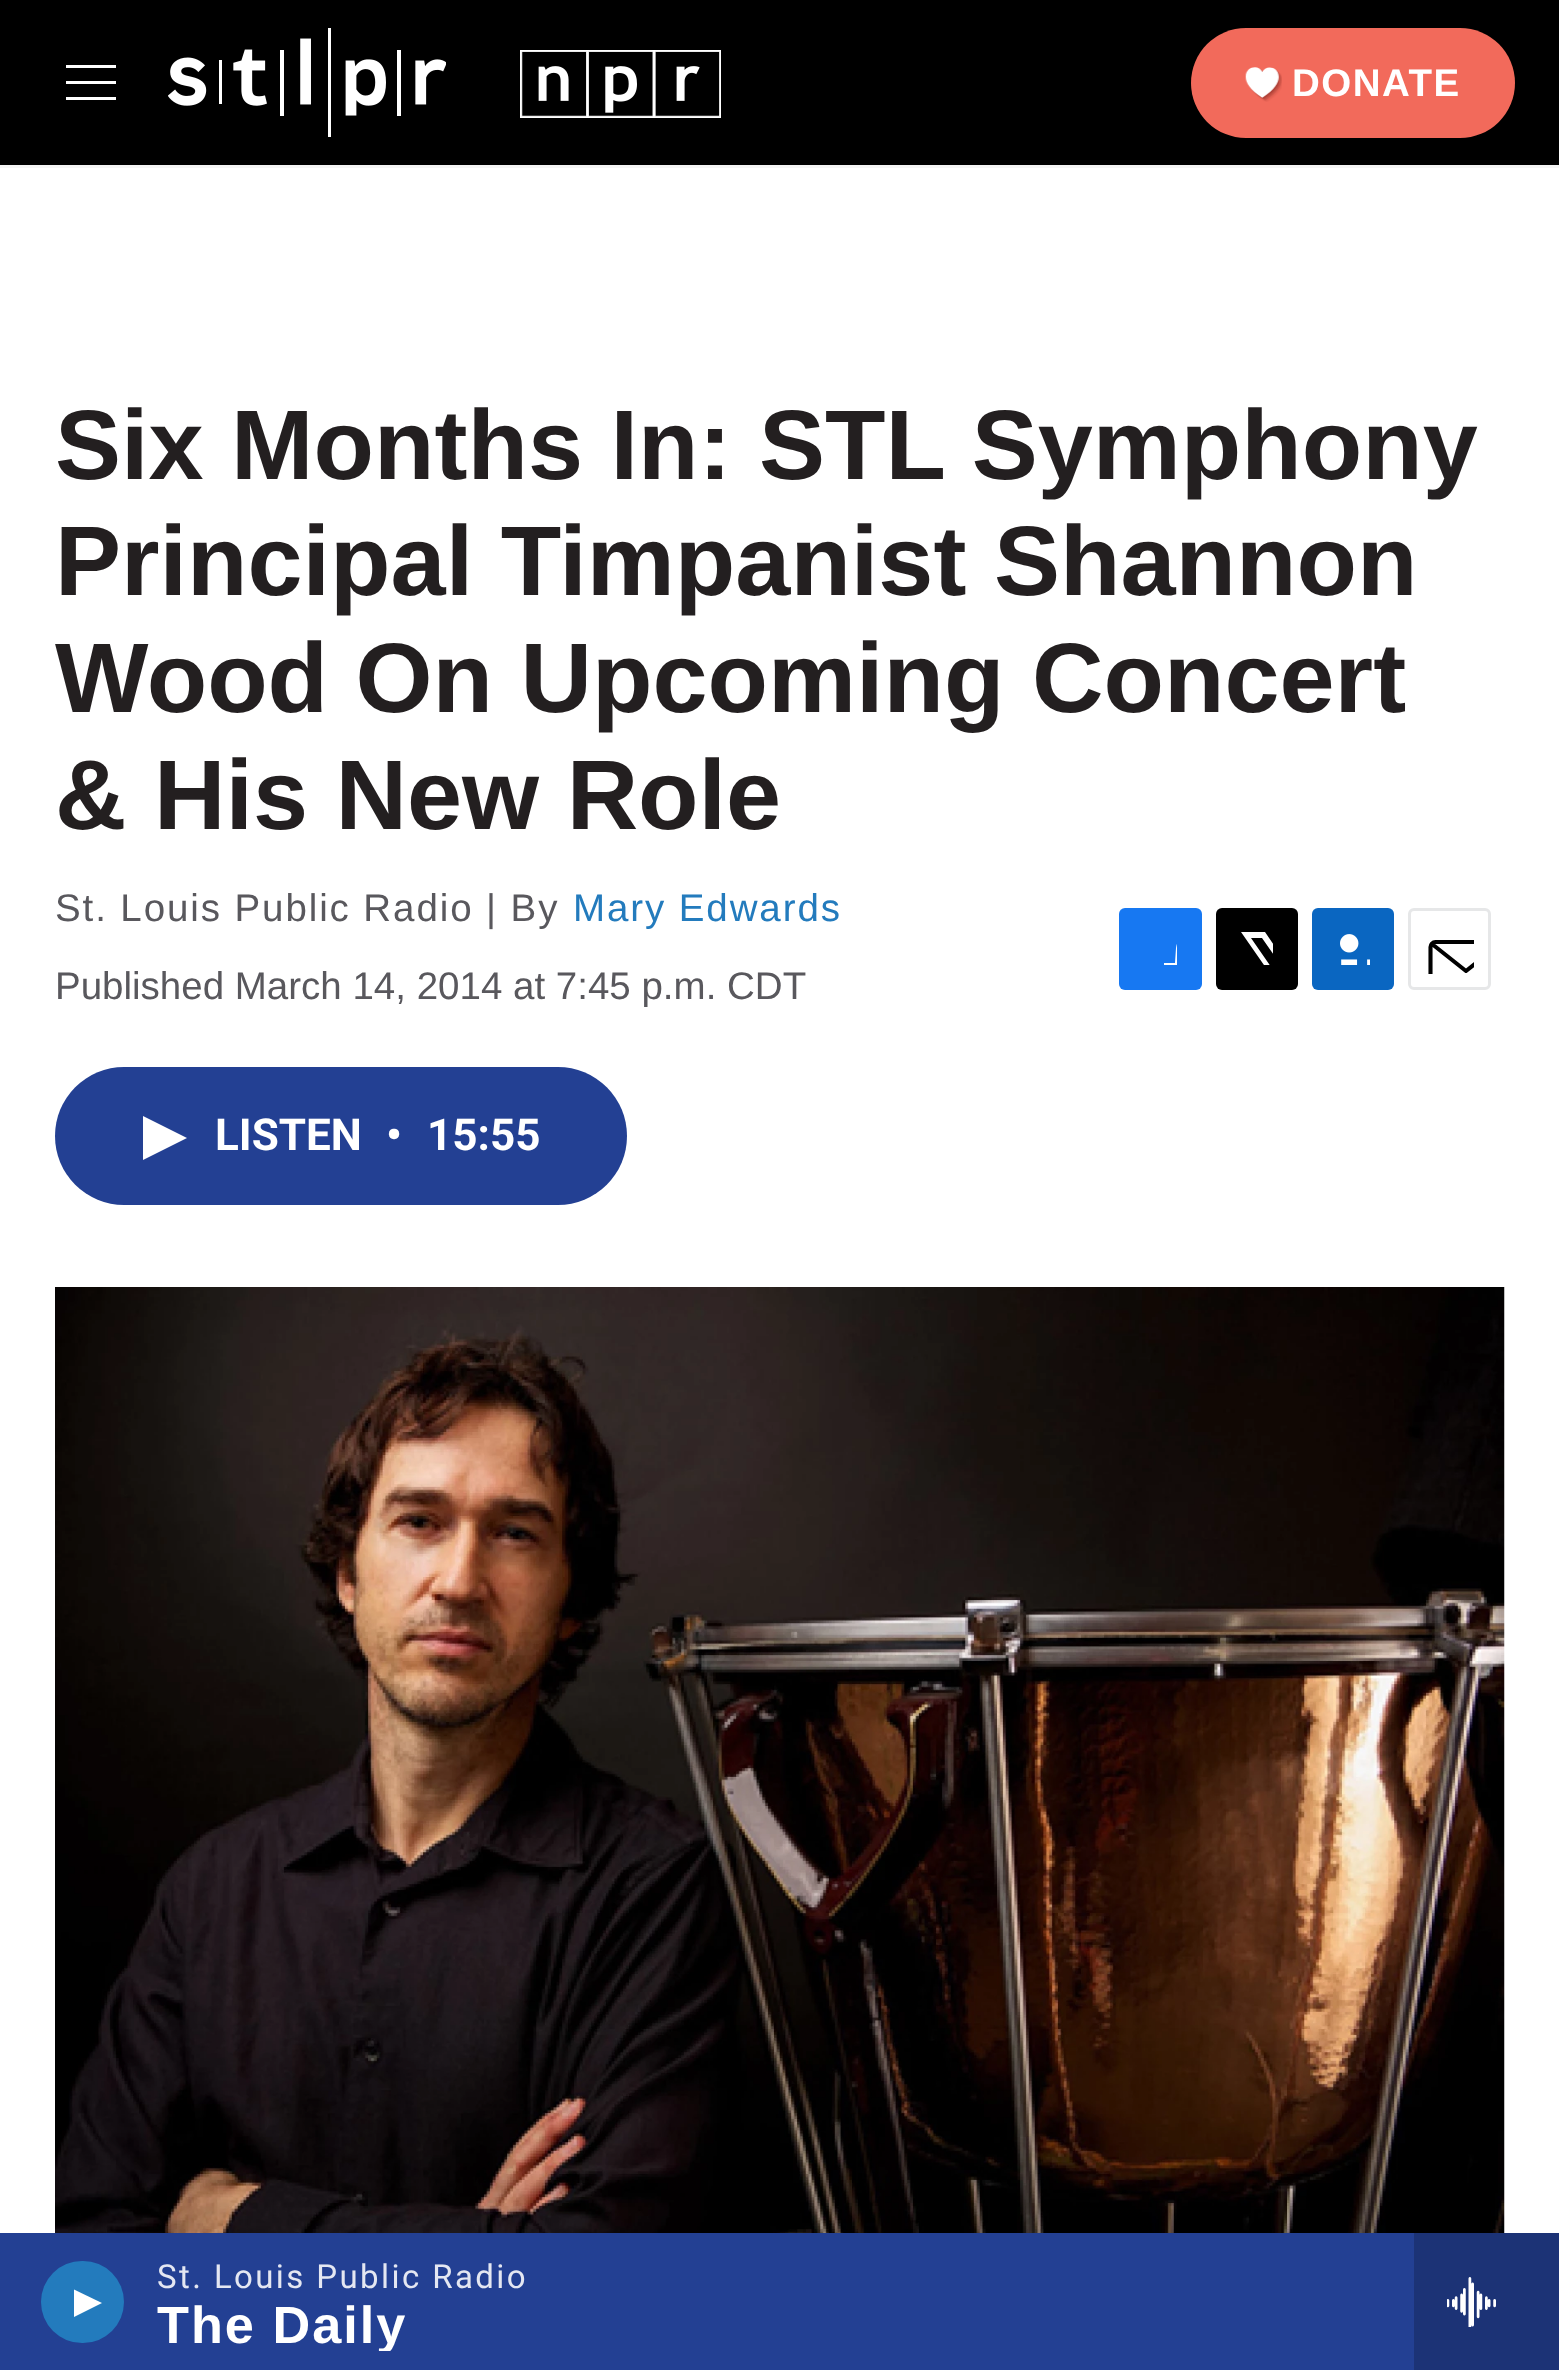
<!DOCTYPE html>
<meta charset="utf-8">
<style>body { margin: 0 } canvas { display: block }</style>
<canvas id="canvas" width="1559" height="2370"></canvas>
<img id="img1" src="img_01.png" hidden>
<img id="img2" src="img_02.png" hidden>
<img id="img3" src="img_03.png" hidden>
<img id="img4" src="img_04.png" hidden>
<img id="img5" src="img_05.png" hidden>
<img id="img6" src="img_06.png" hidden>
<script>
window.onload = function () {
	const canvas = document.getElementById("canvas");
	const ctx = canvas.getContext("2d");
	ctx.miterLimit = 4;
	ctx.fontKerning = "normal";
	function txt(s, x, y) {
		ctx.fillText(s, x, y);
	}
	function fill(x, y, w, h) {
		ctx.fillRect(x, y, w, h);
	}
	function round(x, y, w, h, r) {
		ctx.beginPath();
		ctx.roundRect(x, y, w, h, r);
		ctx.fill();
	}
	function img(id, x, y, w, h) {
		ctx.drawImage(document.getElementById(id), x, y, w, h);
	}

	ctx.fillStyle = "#FFFFFF";
	fill(0, 0, 1559, 2370);
	ctx.fillStyle = "#000000";
	fill(0, 0, 1559, 165);
	ctx.fillStyle = "#F5F5F5";
	fill(0, 165, 1559, 3);
	ctx.fillStyle = "#FFFFFF";
	ctx.beginPath();
	ctx.moveTo(66, 84);
	ctx.lineTo(66, 81);
	ctx.lineTo(116, 81);
	ctx.lineTo(116, 84);
	ctx.closePath();
	ctx.moveTo(66, 68);
	ctx.lineTo(66, 65);
	ctx.lineTo(116, 65);
	ctx.lineTo(116, 68);
	ctx.closePath();
	ctx.moveTo(66, 100);
	ctx.lineTo(66, 97);
	ctx.lineTo(116, 97);
	ctx.lineTo(116, 100);
	ctx.closePath();
	ctx.fill("evenodd");
	img("img1", 168, 28, 278, 109);
	img("img2", 520, 50, 201, 68);
	ctx.fillStyle = "#F26A5B";
	round(1191, 28, 324, 110, 55);
	img("img3", 1245, 67, 37, 35);
	ctx.fillStyle = "#234093";
	fill(0, 2233, 1414, 137);
	ctx.fillStyle = "#237BBD";
	round(41, 2261, 83, 82, 41);
	ctx.fillStyle = "#FFFFFF";
	ctx.beginPath();
	ctx.moveTo(74, 2289.5);
	ctx.lineTo(102, 2303);
	ctx.lineTo(74, 2317);
	ctx.closePath();
	ctx.fill();
	ctx.fillStyle = "#1C3376";
	fill(1414, 2233, 145, 137);
	img("img4", 1447, 2277, 49, 50);
	ctx.fillStyle = "#1778F2";
	round(1119, 908, 83, 82, 6);
	ctx.save();
	ctx.beginPath();
	ctx.rect(1144, 932, 33, 33);
	ctx.clip();
	ctx.fillStyle = "#FFFFFF";
	ctx.beginPath();
	ctx.moveTo(1190, 990);
	ctx.lineTo(1175, 990);
	ctx.lineTo(1175, 977);
	ctx.lineTo(1164, 977);
	ctx.lineTo(1164, 963);
	ctx.lineTo(1175, 963);
	ctx.lineTo(1176, 948);
	ctx.bezierCurveTo(1178, 934, 1190, 932, 1202, 934);
	ctx.lineTo(1202, 946);
	ctx.bezierCurveTo(1187, 946, 1190, 951, 1190, 963);
	ctx.lineTo(1202, 963);
	ctx.lineTo(1202, 970);
	ctx.lineTo(1201, 977);
	ctx.lineTo(1190, 977);
	ctx.closePath();
	ctx.fill();
	ctx.restore();
	ctx.fillStyle = "#000000";
	round(1216, 908, 82, 82, 6);
	ctx.save();
	ctx.beginPath();
	ctx.rect(1240, 932, 33, 33);
	ctx.clip();
	ctx.fillStyle = "#FFFFFF";
	ctx.beginPath();
	ctx.moveTo(1289, 967);
	ctx.lineTo(1298, 980);
	ctx.bezierCurveTo(1298, 983, 1298, 986, 1297, 988);
	ctx.lineTo(1262, 938);
	ctx.lineTo(1251, 938);
	ctx.lineTo(1287, 990);
	ctx.lineTo(1281, 990);
	ctx.lineTo(1276, 983);
	ctx.lineTo(1270, 990);
	ctx.lineTo(1263, 990);
	ctx.lineTo(1273, 978);
	ctx.lineTo(1241, 932);
	ctx.lineTo(1265, 932);
	ctx.lineTo(1286, 963);
	ctx.lineTo(1298, 949);
	ctx.lineTo(1298, 956);
	ctx.closePath();
	ctx.fill();
	ctx.restore();
	ctx.fillStyle = "#0A66C1";
	round(1312, 908, 82, 82, 6);
	img("img5", 1340, 934, 30, 31);
	ctx.beginPath();
	ctx.roundRect(1409.5, 909.5, 80, 79, 4.5);
	ctx.strokeStyle = "#E6E7E8";
	ctx.lineWidth = 3;
	ctx.stroke();
	ctx.save();
	ctx.beginPath();
	ctx.rect(1425, 924, 49, 50);
	ctx.clip();
	ctx.beginPath();
	ctx.moveTo(1501, 984.5);
	ctx.bezierCurveTo(1501, 987, 1499, 989.5, 1496, 989.5);
	ctx.lineTo(1435.5, 989.5);
	ctx.bezierCurveTo(1432.5, 989.5, 1430.5, 987, 1430.5, 984.5);
	ctx.lineTo(1430.5, 947);
	ctx.bezierCurveTo(1430.5, 944.5, 1432.5, 942, 1435.5, 942);
	ctx.lineTo(1496, 942);
	ctx.bezierCurveTo(1499, 942, 1501, 944.5, 1501, 947);
	ctx.closePath();
	ctx.moveTo(1499.5, 944);
	ctx.lineTo(1466, 971);
	ctx.lineTo(1432, 944);
	ctx.strokeStyle = "#000000";
	ctx.lineWidth = 4.1;
	ctx.lineCap = "round";
	ctx.lineJoin = "round";
	ctx.stroke();
	ctx.restore();
	ctx.fillStyle = "#234093";
	round(55, 1067, 572, 138, 69);
	ctx.fillStyle = "#FFFFFF";
	ctx.beginPath();
	ctx.moveTo(143, 1116);
	ctx.lineTo(187, 1138);
	ctx.lineTo(143, 1160);
	ctx.closePath();
	ctx.fill();
	img("img6", 55, 1287, 1450, 946);
	ctx.letterSpacing = "1.5px";
	ctx.font = "bold 38.5px Liberation Sans";
	txt("DONATE", 1292, 96);
	ctx.letterSpacing = "2.4px";
	ctx.font = "33px Roboto";
	ctx.fillStyle = "#E4E7F2";
	txt("St. Louis Public Radio", 157, 2288);
	ctx.save();
	ctx.beginPath();
	ctx.rect(157, 2302, 550, 49);
	ctx.clip();
	ctx.letterSpacing = "2px";
	ctx.font = "bold 52.25px Liberation Sans";
	ctx.fillStyle = "#FFFFFF";
	txt("The Daily", 157, 2343);
	ctx.restore();
	ctx.letterSpacing = "0px";
	ctx.font = "bold 99px Liberation Sans";
	ctx.fillStyle = "#231F20";
	txt("Six Months In: STL Symphony", 55, 479);
	txt("Principal Timpanist Shannon", 55, 595);
	txt("Wood On Upcoming Concert", 55, 712);
	txt("& His New Role", 55, 829);
	ctx.letterSpacing = "1.9px";
	ctx.font = "38.5px Liberation Sans";
	ctx.fillStyle = "#59585D";
	txt("St. Louis Public Radio | By", 55, 921);
	ctx.fillStyle = "#237BBD";
	txt("Mary Edwards", 573, 921);
	ctx.letterSpacing = "0px";
	ctx.fillStyle = "#59585D";
	txt("Published March 14, 2014 at 7:45 p.m. CDT", 55, 999);
	ctx.font = "bold 44px Roboto";
	ctx.fillStyle = "#FFFFFF";
	txt("LISTEN", 215, 1150);
	txt("•", 386, 1150);
	txt("15:55", 427, 1150);
};
</script>
